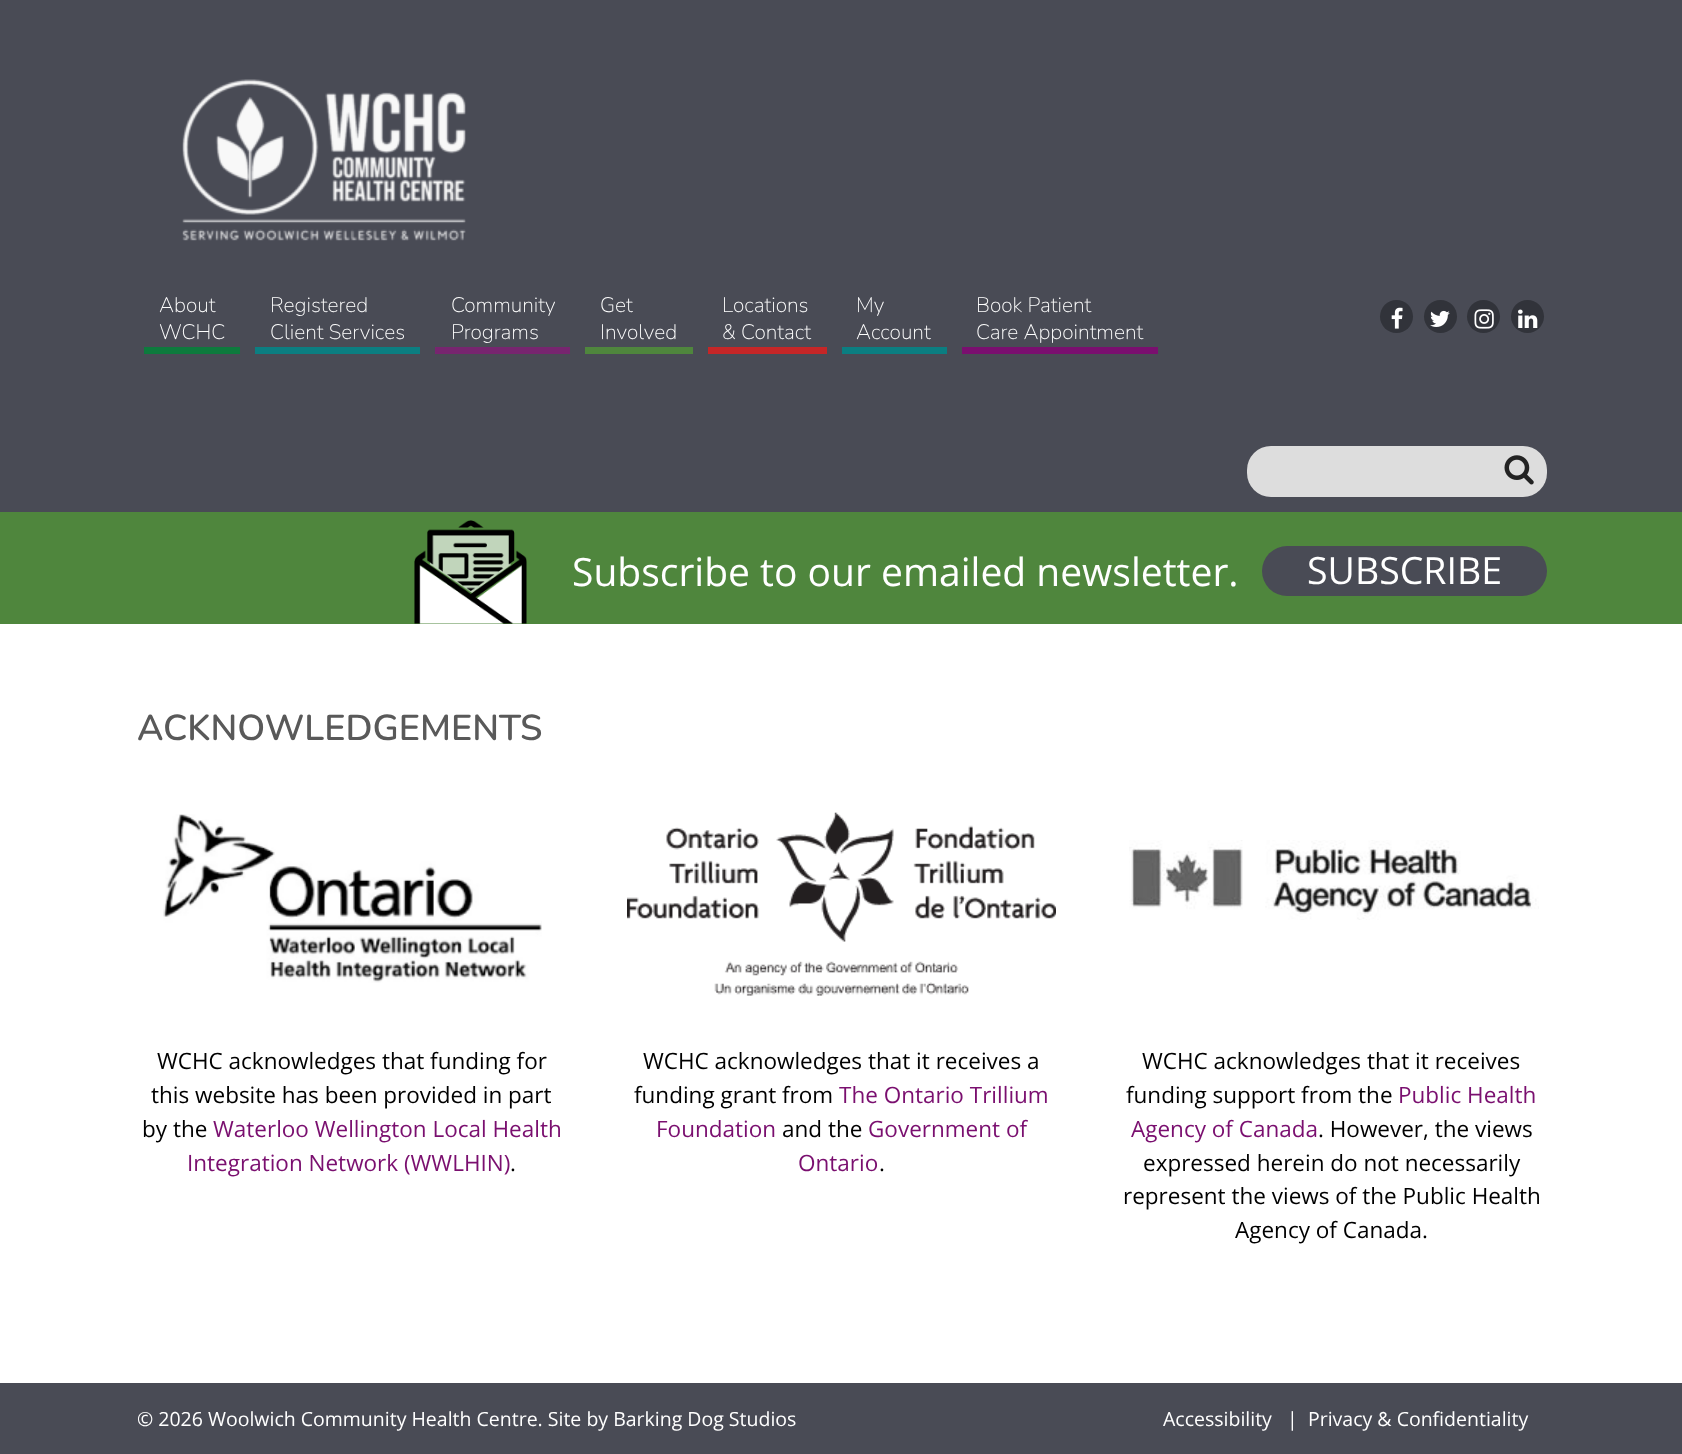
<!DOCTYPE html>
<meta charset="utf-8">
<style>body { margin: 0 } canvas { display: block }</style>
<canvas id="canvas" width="1682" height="1454"></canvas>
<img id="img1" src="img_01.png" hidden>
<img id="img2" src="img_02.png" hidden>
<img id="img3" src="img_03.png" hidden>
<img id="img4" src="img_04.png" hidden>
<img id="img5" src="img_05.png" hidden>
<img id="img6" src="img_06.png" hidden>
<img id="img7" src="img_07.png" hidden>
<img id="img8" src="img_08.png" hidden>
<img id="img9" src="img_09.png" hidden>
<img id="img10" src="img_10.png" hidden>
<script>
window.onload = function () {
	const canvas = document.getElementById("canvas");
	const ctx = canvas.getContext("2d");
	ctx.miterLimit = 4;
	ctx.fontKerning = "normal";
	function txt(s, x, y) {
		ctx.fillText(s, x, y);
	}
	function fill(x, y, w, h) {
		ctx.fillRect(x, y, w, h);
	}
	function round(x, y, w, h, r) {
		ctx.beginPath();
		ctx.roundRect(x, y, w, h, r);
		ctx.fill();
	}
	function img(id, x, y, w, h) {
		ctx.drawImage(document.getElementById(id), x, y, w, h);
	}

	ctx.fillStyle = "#FFFFFF";
	fill(0, 0, 1682, 1454);
	ctx.fillStyle = "#494B55";
	fill(0, 0, 1682, 512);
	img("img1", 182, 79, 284, 162);
	ctx.fillStyle = "#0D7A3D";
	fill(144, 347, 96, 7);
	ctx.fillStyle = "#0B7E81";
	fill(255, 347, 165, 7);
	ctx.fillStyle = "#77256F";
	fill(435, 347, 135, 7);
	ctx.fillStyle = "#4F863D";
	fill(585, 347, 108, 7);
	ctx.fillStyle = "#C52627";
	fill(708, 347, 119, 7);
	ctx.fillStyle = "#0B7E81";
	fill(842, 347, 105, 7);
	ctx.fillStyle = "#7A0F6F";
	fill(962, 347, 196, 7);
	ctx.fillStyle = "#31333A";
	ctx.beginPath();
	ctx.arc(1396.5, 316.5, 16.5, 0, Math.PI * 2);
	ctx.fill();
	img("img2", 1391, 307, 12, 22);
	ctx.beginPath();
	ctx.arc(1440.5, 316.5, 16.5, 0, Math.PI * 2);
	ctx.fill();
	img("img3", 1430, 310, 20, 17);
	ctx.beginPath();
	ctx.arc(1483.5, 316.5, 16.5, 0, Math.PI * 2);
	ctx.fill();
	img("img4", 1474, 309, 20, 20);
	ctx.beginPath();
	ctx.arc(1527.5, 316.5, 16.5, 0, Math.PI * 2);
	ctx.fill();
	img("img5", 1518, 309, 20, 19);
	ctx.fillStyle = "#DDDDDD";
	ctx.beginPath();
	ctx.roundRect(1247, 446, 246, 51, [24, 0, 0, 24]);
	ctx.fill();
	ctx.beginPath();
	ctx.roundRect(1493, 446, 54, 51, [0, 24, 24, 0]);
	ctx.fill();
	img("img6", 1504, 455, 30, 30);
	ctx.fillStyle = "#4F863D";
	fill(0, 512, 1682, 112);
	img("img7", 414, 520, 113, 104);
	ctx.fillStyle = "#494B55";
	round(1262, 546, 285, 50, 25);
	img("img8", 163, 814, 379, 169);
	img("img9", 627, 812, 429, 184);
	img("img10", 1129, 840, 410, 80);
	fill(0, 1383, 1682, 71);
	ctx.font = "200 21px Nunito";
	ctx.fillStyle = "#FFFFFF";
	txt("About", 159, 312);
	txt("WCHC", 159, 339);
	txt("Registered", 270, 312);
	txt("Client Services", 270, 339);
	txt("Community", 451, 312);
	txt("Programs", 451, 339);
	txt("Get", 600, 312);
	txt("Involved", 600, 339);
	txt("Locations", 722, 312);
	txt("& Contact", 722, 339);
	txt("My", 856, 312);
	txt("Account", 856, 339);
	txt("Book Patient", 976, 312);
	txt("Care Appointment", 976, 339);
	ctx.font = "39px Open Sans";
	txt("Subscribe to our emailed newsletter.", 572, 586);
	ctx.font = "37.5px Open Sans";
	txt("SUBSCRIBE", 1307, 584);
	ctx.font = "600 36px Nunito";
	ctx.fillStyle = "#595959";
	txt("ACKNOWLEDGEMENTS", 137, 740);
	ctx.font = "22.5px Open Sans";
	ctx.fillStyle = "#000000";
	txt("WCHC acknowledges that funding for", 157, 1069);
	txt("this website has been provided in part", 151, 1103);
	txt("by the", 142, 1137);
	ctx.fillStyle = "#7A0F6F";
	txt("Waterloo Wellington Local Health", 213, 1137);
	txt("Integration Network (WWLHIN)", 187, 1171);
	ctx.fillStyle = "#000000";
	txt(".", 510, 1171);
	txt("WCHC acknowledges that it receives a", 643, 1069);
	txt("funding grant from", 634, 1103);
	ctx.fillStyle = "#7A0F6F";
	txt("The Ontario Trillium", 839, 1103);
	txt("Foundation", 656, 1137);
	ctx.fillStyle = "#000000";
	txt("and the", 782, 1137);
	ctx.fillStyle = "#7A0F6F";
	txt("Government of", 868, 1137);
	txt("Ontario", 798, 1171);
	ctx.fillStyle = "#000000";
	txt(".", 879, 1171);
	txt("WCHC acknowledges that it receives", 1142, 1069);
	txt("funding support from the", 1126, 1103);
	ctx.fillStyle = "#7A0F6F";
	txt("Public Health", 1398, 1103);
	txt("Agency of Canada", 1131, 1137);
	ctx.fillStyle = "#000000";
	txt(". However, the views", 1318, 1137);
	txt("expressed herein do not necessarily", 1143, 1171);
	txt("represent the views of the Public Health", 1123, 1204);
	txt("Agency of Canada.", 1235, 1238);
	ctx.font = "19.5px Open Sans";
	ctx.fillStyle = "#FFFFFF";
	txt("© 2026 Woolwich Community Health Centre. Site by Barking Dog Studios", 137, 1426);
	txt("Accessibility", 1163, 1426);
	txt("|", 1287, 1426);
	txt("Privacy & Confidentiality", 1308, 1426);
};
</script>
